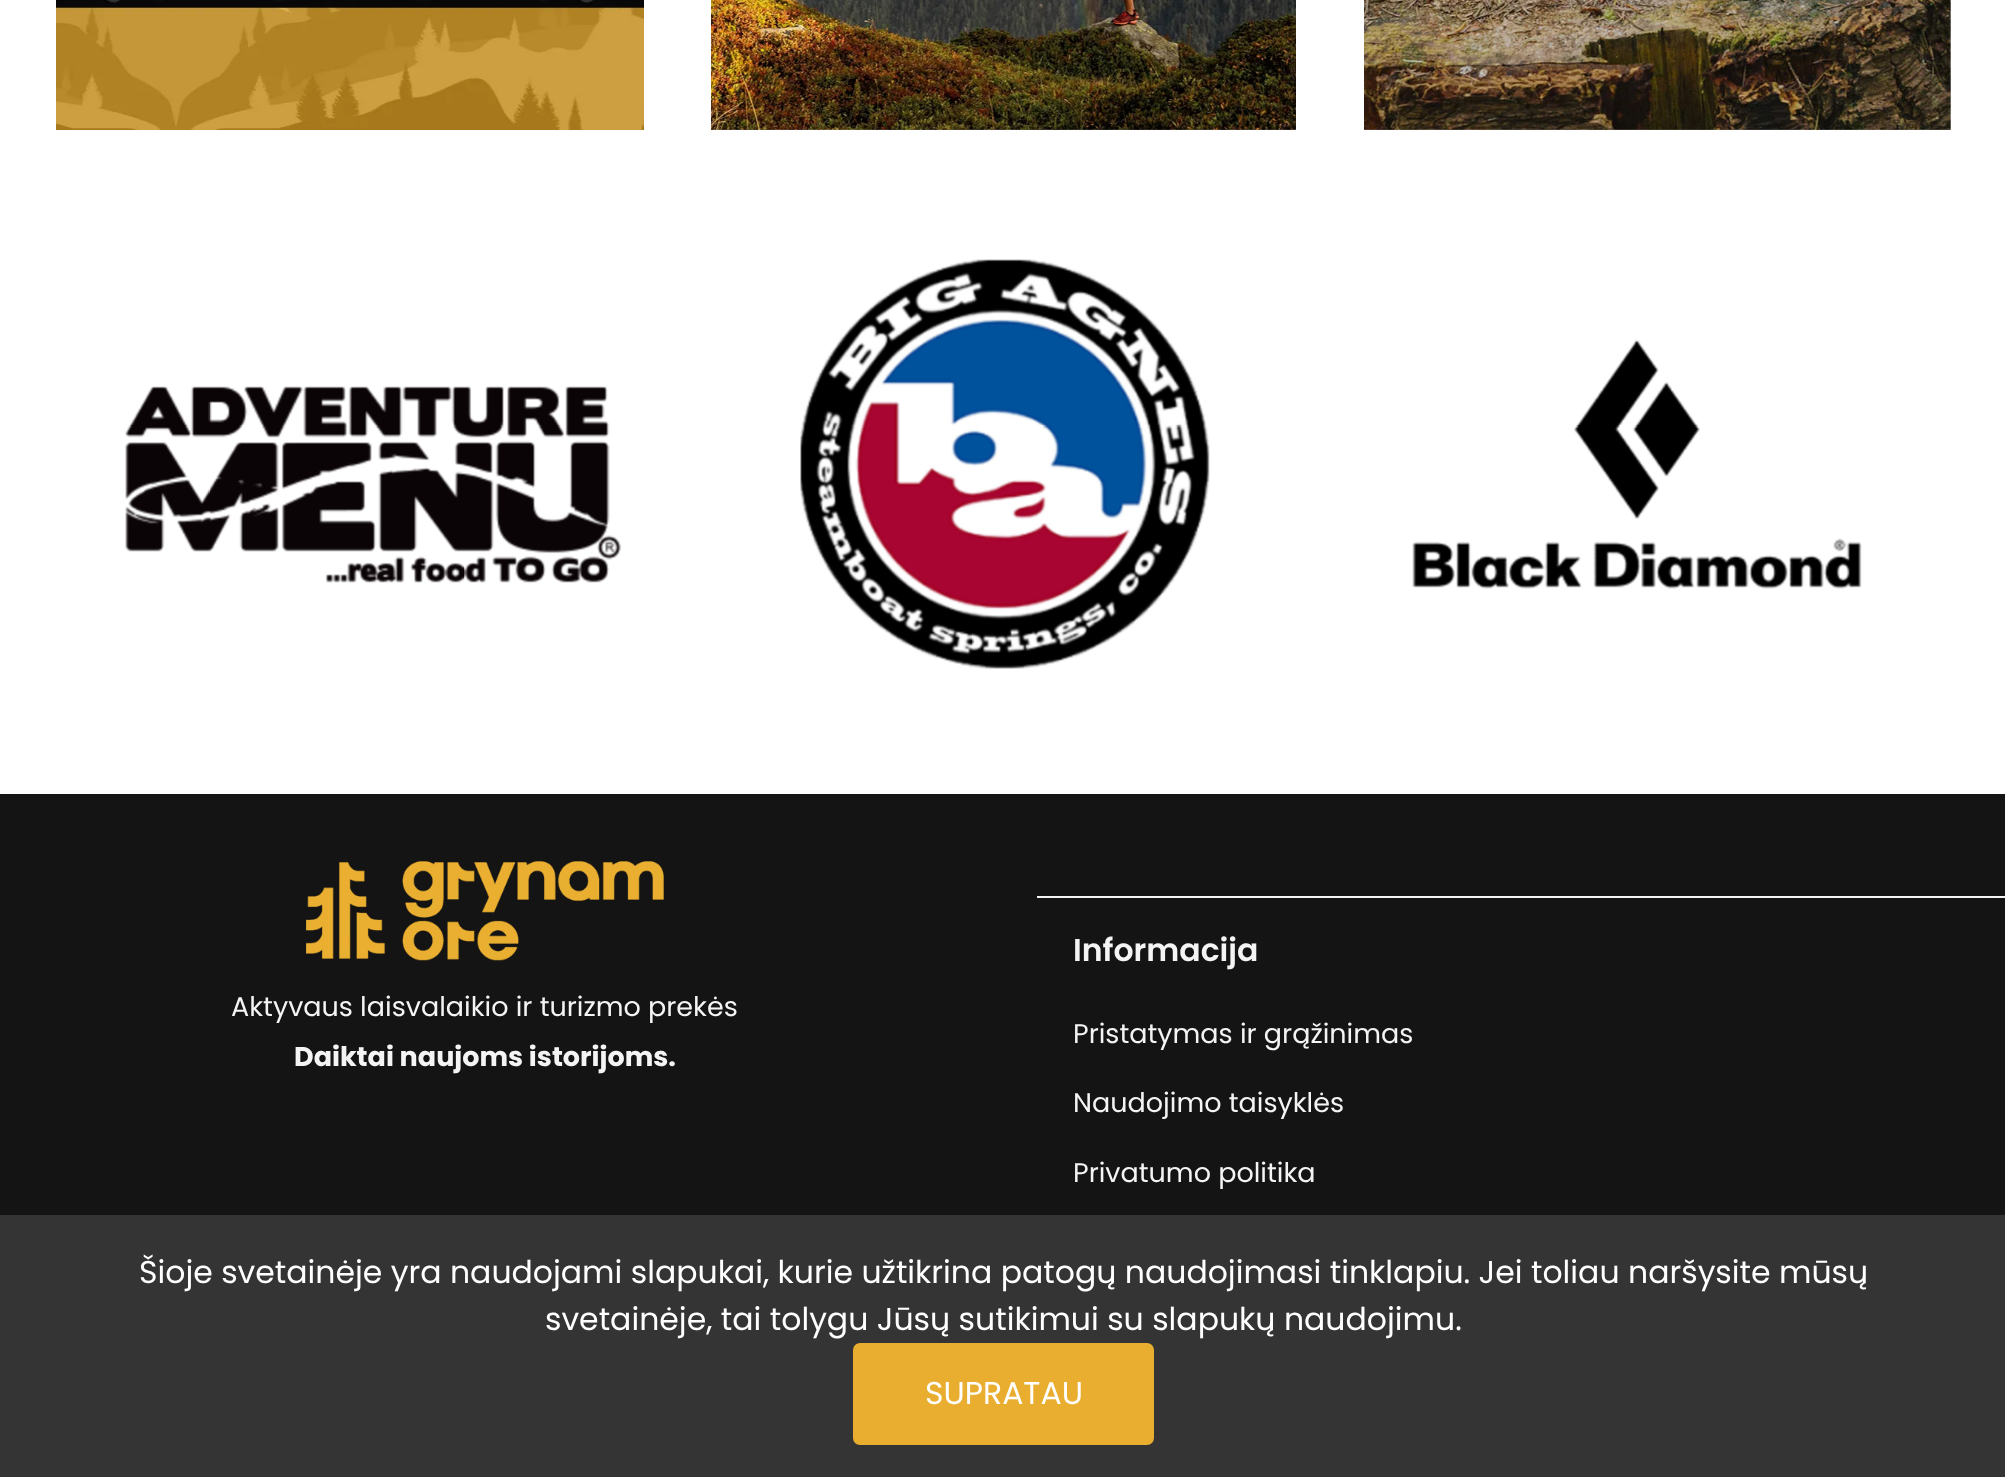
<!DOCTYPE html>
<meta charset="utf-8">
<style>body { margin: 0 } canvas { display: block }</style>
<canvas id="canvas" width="2005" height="1477"></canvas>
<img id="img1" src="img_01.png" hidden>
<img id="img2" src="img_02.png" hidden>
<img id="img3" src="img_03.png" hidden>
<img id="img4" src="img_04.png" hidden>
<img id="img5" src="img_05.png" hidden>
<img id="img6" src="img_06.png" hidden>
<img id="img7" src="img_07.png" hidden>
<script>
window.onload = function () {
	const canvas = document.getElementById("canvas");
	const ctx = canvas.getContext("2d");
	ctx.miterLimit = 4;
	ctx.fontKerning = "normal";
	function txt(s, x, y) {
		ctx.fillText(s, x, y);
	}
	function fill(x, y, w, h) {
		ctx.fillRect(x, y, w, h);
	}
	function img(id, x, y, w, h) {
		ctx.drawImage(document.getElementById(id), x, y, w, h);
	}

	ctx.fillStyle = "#FFFFFF";
	fill(0, 0, 2005, 1477);
	img("img1", 56, 0, 588, 130);
	img("img2", 711, 0, 585, 130);
	img("img3", 1364, 0, 587, 130);
	img("img4", 125, 386, 497, 197);
	img("img5", 800, 259, 410, 410);
	img("img6", 1412, 339, 450, 250);
	ctx.fillStyle = "#141414";
	fill(0, 794, 2005, 421);
	img("img7", 306, 861, 358, 100);
	ctx.fillStyle = "#F4F4F4";
	fill(1037, 896, 968, 2);
	ctx.fillStyle = "#343434";
	fill(0, 1215, 2005, 262);
	ctx.fillStyle = "#E9AE30";
	ctx.beginPath();
	ctx.roundRect(855.5, 1345.5, 296, 97, 4.5);
	ctx.fill();
	ctx.strokeStyle = "#E9AE30";
	ctx.lineWidth = 5;
	ctx.stroke();
	ctx.font = "27px Poppins";
	ctx.fillStyle = "#F4F4F4";
	txt("Aktyvaus laisvalaikio ir turizmo prekės", 231, 1016);
	ctx.font = "bold 27px Poppins";
	txt("Daiktai naujoms istorijoms.", 294, 1066);
	ctx.font = "600 31.5px Poppins";
	txt("Informacija", 1073, 961);
	ctx.font = "27px Poppins";
	txt("Pristatymas ir grąžinimas", 1073, 1043);
	txt("Naudojimo taisyklės", 1073, 1112);
	txt("Privatumo politika", 1073, 1182);
	ctx.font = "31.5px Poppins";
	ctx.fillStyle = "#FFFFFF";
	txt("Šioje svetainėje yra naudojami slapukai, kurie užtikrina patogų naudojimasi tinklapiu. Jei toliau naršysite mūsų", 139, 1283);
	txt("svetainėje, tai tolygu Jūsų sutikimui su slapukų naudojimu.", 545, 1330);
	txt("SUPRATAU", 925, 1404);
};
</script>
